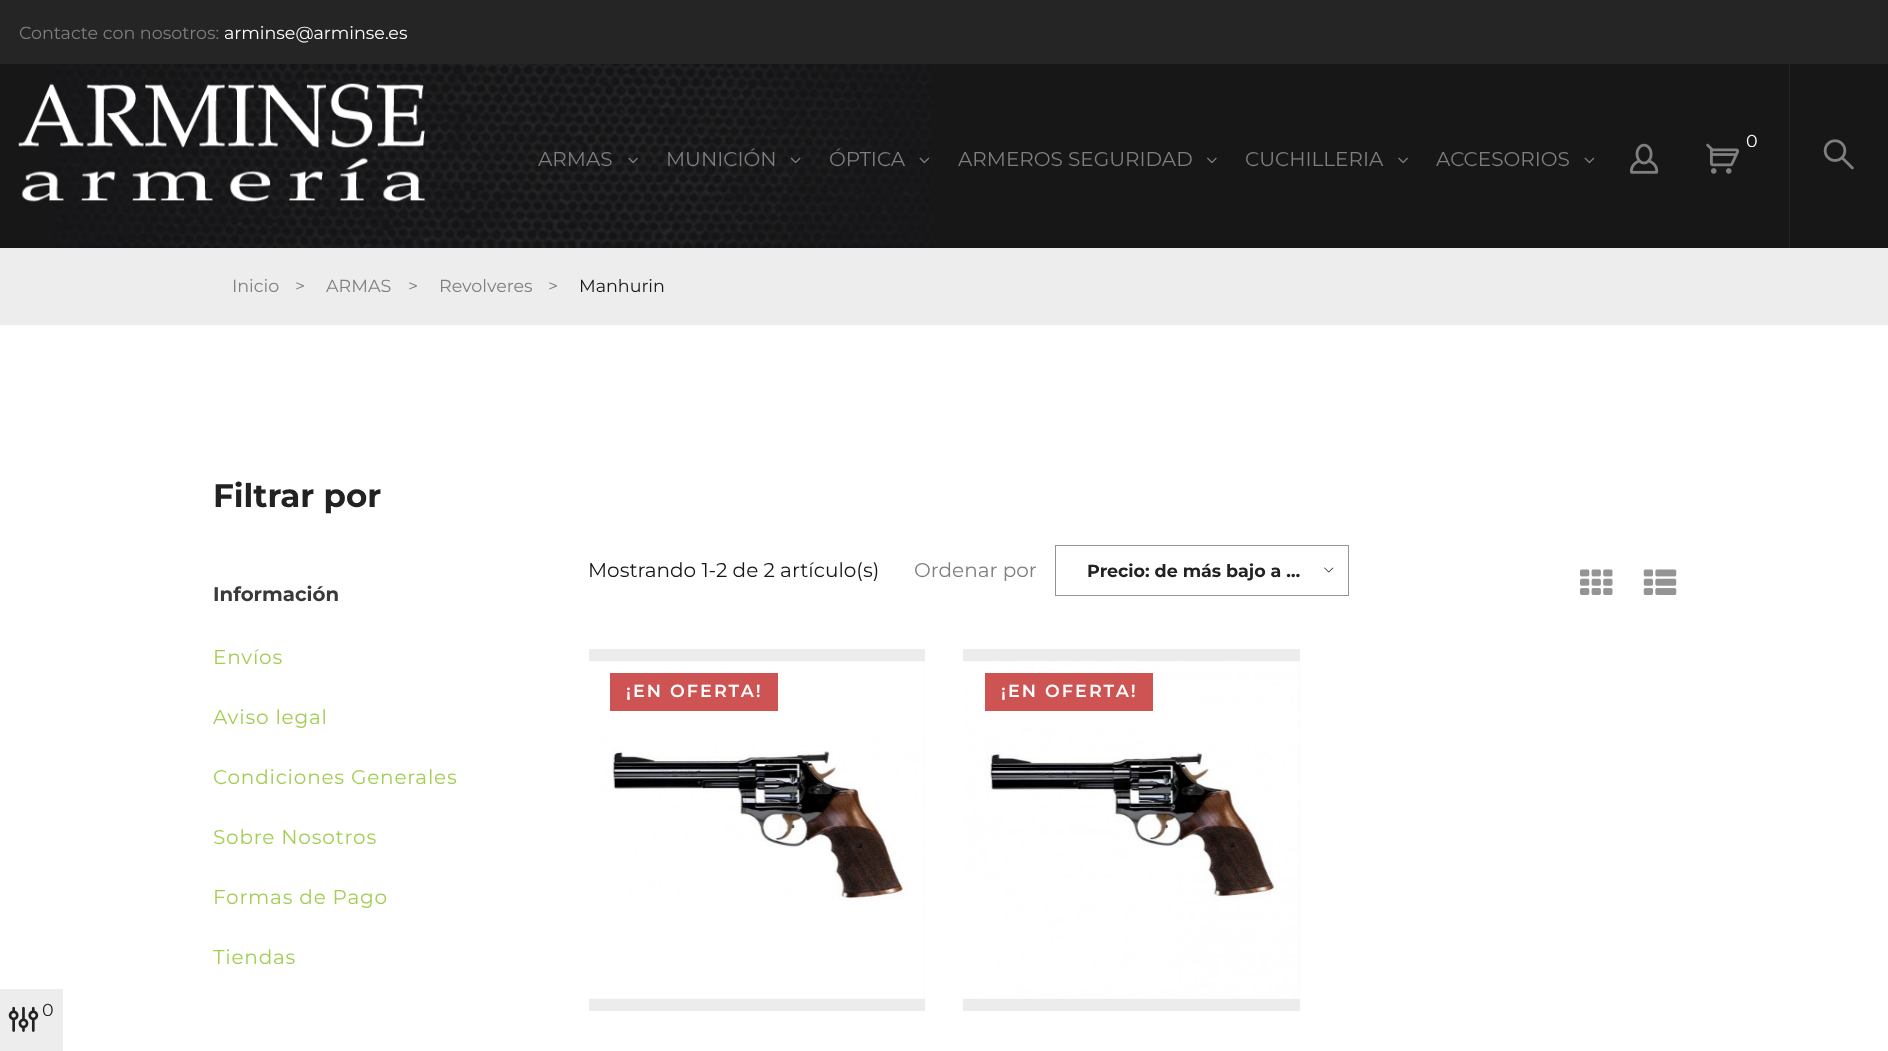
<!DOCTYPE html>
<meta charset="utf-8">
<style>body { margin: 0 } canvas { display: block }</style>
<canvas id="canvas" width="1888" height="1051"></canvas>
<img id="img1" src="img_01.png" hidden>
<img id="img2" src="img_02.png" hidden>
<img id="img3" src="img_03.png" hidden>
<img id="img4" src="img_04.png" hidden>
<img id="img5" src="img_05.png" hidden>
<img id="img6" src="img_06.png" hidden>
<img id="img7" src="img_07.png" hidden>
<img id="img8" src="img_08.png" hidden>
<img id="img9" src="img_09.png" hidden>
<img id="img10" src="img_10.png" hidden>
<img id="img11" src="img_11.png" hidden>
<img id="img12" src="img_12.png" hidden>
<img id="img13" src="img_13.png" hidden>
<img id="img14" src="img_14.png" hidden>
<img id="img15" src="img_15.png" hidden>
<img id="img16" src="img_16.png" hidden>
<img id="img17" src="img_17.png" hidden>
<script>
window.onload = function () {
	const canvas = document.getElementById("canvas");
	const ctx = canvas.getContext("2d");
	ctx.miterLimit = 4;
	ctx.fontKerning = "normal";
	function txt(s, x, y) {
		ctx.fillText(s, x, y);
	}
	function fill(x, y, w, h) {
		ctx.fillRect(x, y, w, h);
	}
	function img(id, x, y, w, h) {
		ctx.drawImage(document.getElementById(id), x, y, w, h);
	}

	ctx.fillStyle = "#FFFFFF";
	fill(0, 0, 1888, 1051);
	ctx.fillStyle = "#171718";
	fill(0, 64, 1888, 184);
	ctx.fillStyle = "#252526";
	fill(0, 0, 1888, 64);
	img("img1", 52, 64, 882, 184);
	img("img2", 18, 83, 407, 119);
	img("img3", 1706, 143, 33, 31);
	fill(1789, 64, 1, 184);
	img("img4", 1823, 139, 31, 31);
	img("img5", 628, 157, 10, 7);
	img("img6", 790, 157, 11, 7);
	img("img7", 919, 157, 11, 7);
	img("img8", 1207, 157, 10, 7);
	img("img9", 1398, 157, 10, 7);
	img("img10", 1584, 157, 11, 7);
	img("img11", 1630, 143, 29, 31);
	ctx.fillStyle = "#EDEDED";
	fill(0, 248, 1888, 77);
	img("img12", 1324, 567, 10, 6);
	ctx.strokeStyle = "#949494";
	ctx.strokeRect(1055.5, 545.5, 293, 50);
	img("img13", 1580, 569, 33, 26);
	img("img14", 1643, 569, 34, 26);
	ctx.fillStyle = "#ECECEC";
	fill(589, 649, 336, 362);
	img("img15", 589, 661, 336, 338);
	ctx.fillStyle = "#CE5454";
	fill(610, 673, 168, 38);
	ctx.fillStyle = "#ECECEC";
	fill(963, 649, 337, 362);
	img("img16", 963, 661, 337, 338);
	ctx.fillStyle = "#CE5454";
	fill(985, 673, 168, 38);
	ctx.fillStyle = "#EDEDED";
	fill(0, 989, 63, 62);
	img("img17", 8, 1006, 31, 26);
	ctx.font = "17.5px Montserrat";
	ctx.fillStyle = "#7F7F7F";
	txt("Contacte con nosotros:", 19, 39);
	ctx.fillStyle = "#FFFFFF";
	txt("arminse@arminse.es", 224, 39);
	txt("0", 1746, 147);
	ctx.font = "20px Montserrat";
	ctx.fillStyle = "#7F7F7F";
	txt("ARMAS", 538, 166);
	txt("MUNICIÓN", 666, 166);
	txt("ÓPTICA", 829, 166);
	txt("ARMEROS SEGURIDAD", 958, 166);
	txt("CUCHILLERIA", 1245, 166);
	txt("ACCESORIOS", 1436, 166);
	ctx.font = "17.5px Montserrat";
	txt("Inicio", 232, 292);
	txt(">", 295, 292);
	txt("ARMAS", 326, 292);
	txt(">", 408, 292);
	txt("Revolveres", 439, 292);
	txt(">", 548, 292);
	ctx.fillStyle = "#171718";
	txt("Manhurin", 579, 292);
	ctx.font = "bold 32.5px Montserrat";
	ctx.fillStyle = "#222225";
	txt("Filtrar por", 213, 507);
	ctx.font = "bold 19.75px Montserrat";
	ctx.fillStyle = "#3A3A3A";
	txt("Información", 213, 601);
	ctx.letterSpacing = "0.8px";
	ctx.font = "20px Montserrat";
	ctx.fillStyle = "#A3CE54";
	txt("Envíos", 213, 664);
	txt("Aviso legal", 213, 724);
	txt("Condiciones Generales", 213, 784);
	txt("Sobre Nosotros", 213, 844);
	txt("Formas de Pago", 213, 904);
	txt("Tiendas", 213, 964);
	ctx.letterSpacing = "0px";
	ctx.fillStyle = "#171718";
	txt("Mostrando 1-2 de 2 artículo(s)", 588, 577);
	ctx.fillStyle = "#7F7F7F";
	txt("Ordenar por", 914, 577);
	ctx.font = "bold 17.5px Montserrat";
	ctx.fillStyle = "#222225";
	txt("Precio: de más bajo a …", 1087, 577);
	ctx.letterSpacing = "2.1px";
	ctx.font = "600 17.5px Montserrat";
	ctx.fillStyle = "#FFFFFF";
	txt("¡EN OFERTA!", 626, 697);
	txt("¡EN OFERTA!", 1001, 697);
	ctx.letterSpacing = "0px";
	ctx.font = "17.5px Montserrat";
	ctx.fillStyle = "#222225";
	txt("0", 42, 1016);
};
</script>
